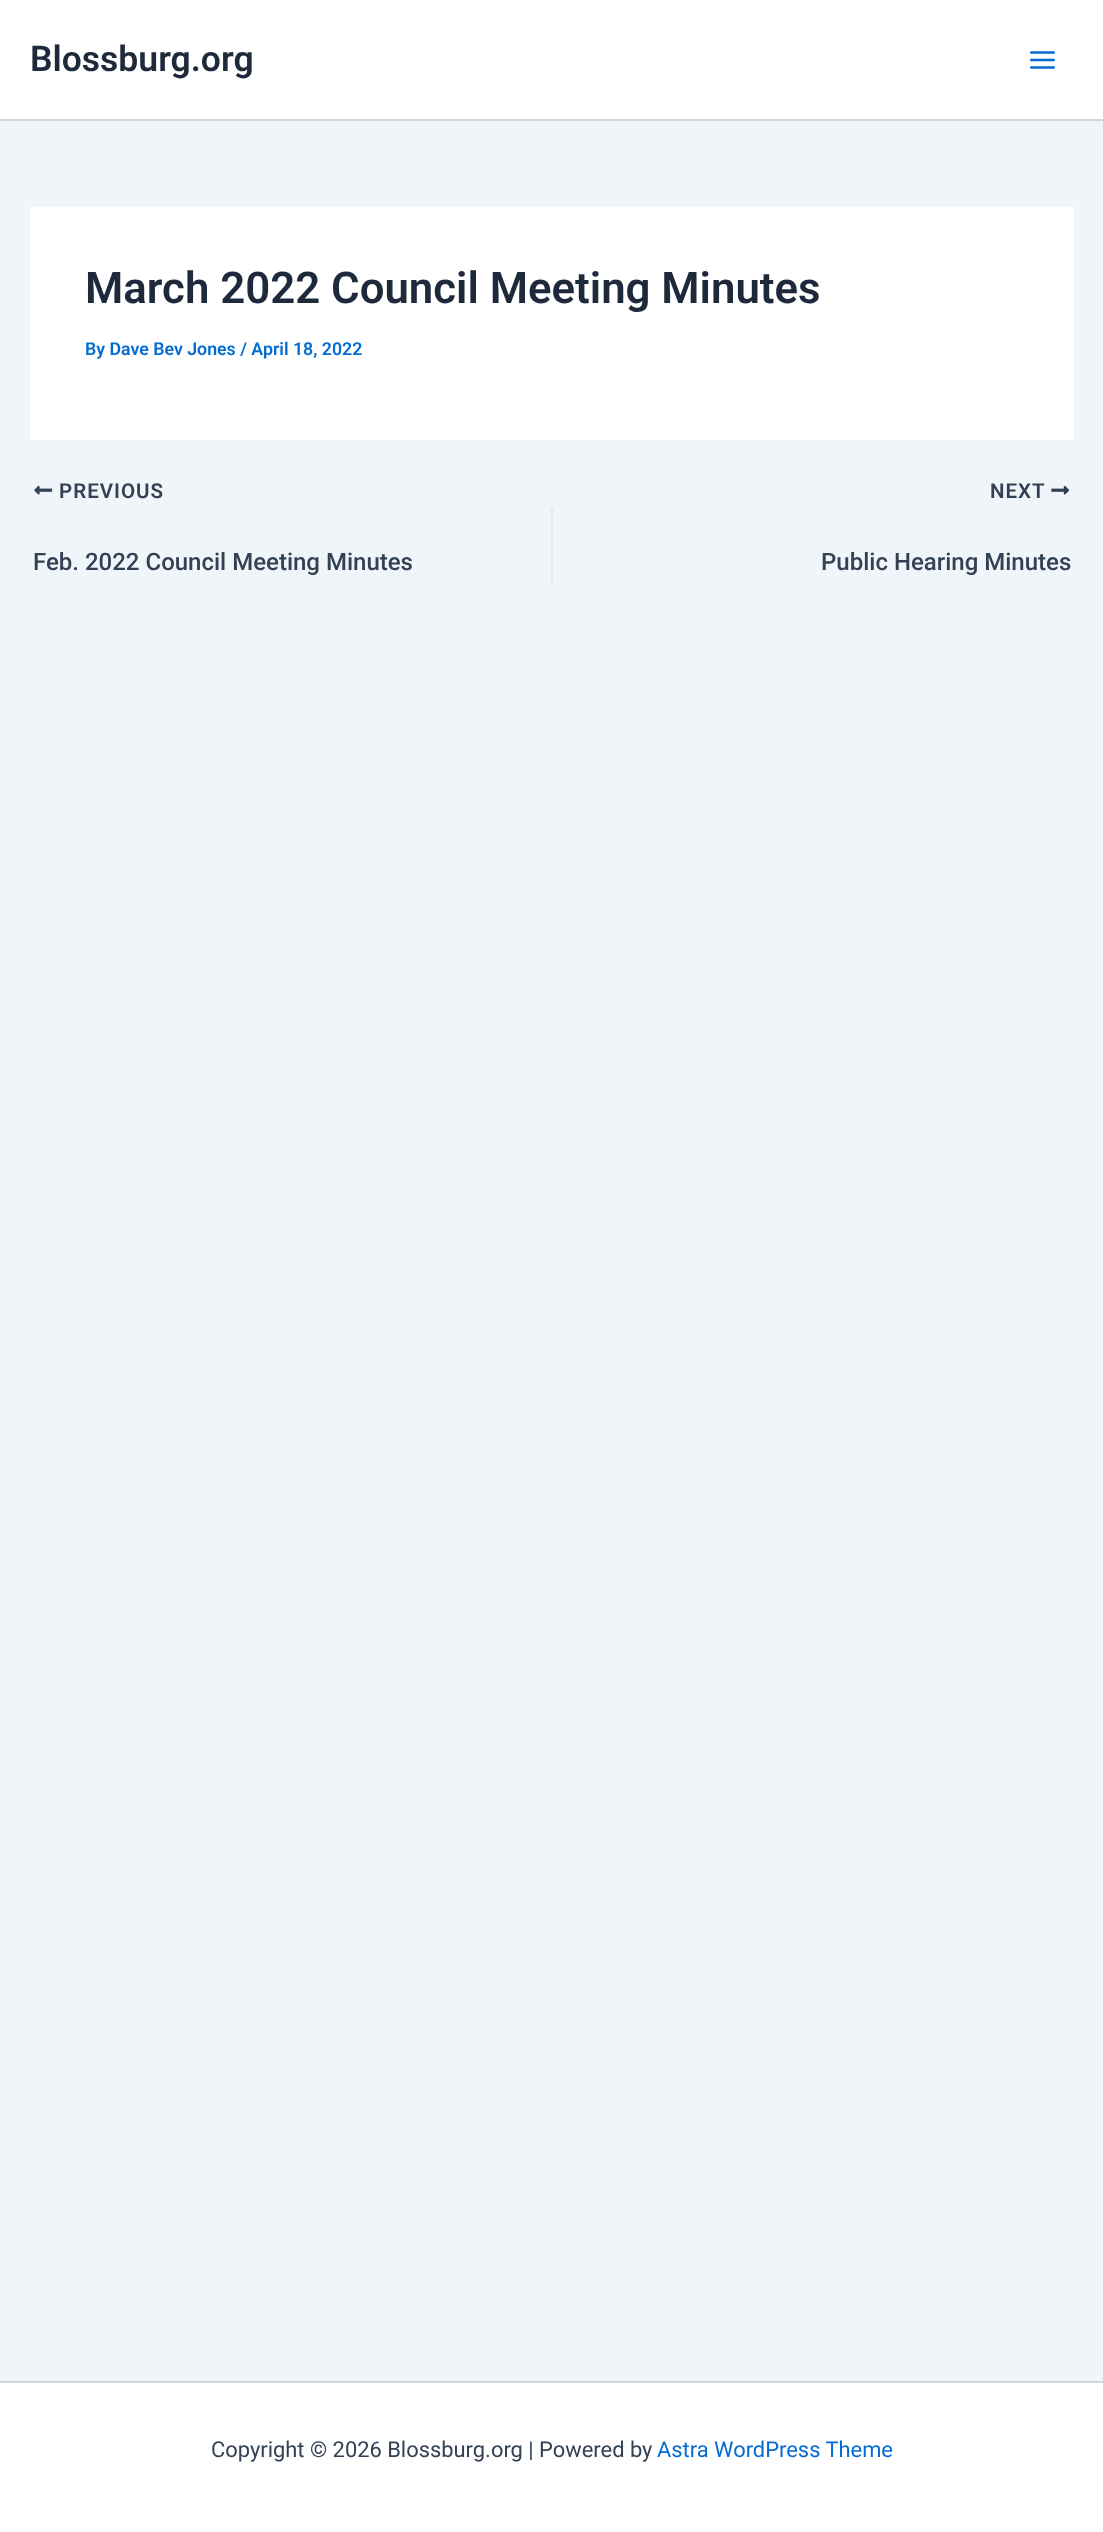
<!DOCTYPE html>
<meta charset="utf-8">
<style>body { margin: 0 } canvas { display: block }</style>
<canvas id="canvas" width="1103" height="2532"></canvas>
<img id="img1" src="img_01.png" hidden>
<img id="img2" src="img_02.png" hidden>
<img id="img3" src="img_03.png" hidden>
<script>
window.onload = function () {
	const canvas = document.getElementById("canvas");
	const ctx = canvas.getContext("2d");
	ctx.miterLimit = 4;
	ctx.fontKerning = "normal";
	function txt(s, x, y) {
		ctx.fillText(s, x, y);
	}
	function fill(x, y, w, h) {
		ctx.fillRect(x, y, w, h);
	}
	function img(id, x, y, w, h) {
		ctx.drawImage(document.getElementById(id), x, y, w, h);
	}

	ctx.fillStyle = "#F0F5FA";
	fill(0, 0, 1103, 2532);
	ctx.fillStyle = "#FFFFFF";
	fill(0, 0, 1103, 119);
	ctx.fillStyle = "#D1D5DB";
	fill(0, 119, 1103, 2);
	img("img1", 1030, 51, 25, 18);
	ctx.fillStyle = "#FFFFFF";
	fill(30, 207, 1044, 233);
	img("img2", 34, 485, 19, 10);
	ctx.fillStyle = "#E1E8ED";
	fill(551, 509, 2, 73);
	img("img3", 1051, 485, 19, 10);
	ctx.fillStyle = "#FFFFFF";
	fill(0, 2383, 1103, 149);
	ctx.fillStyle = "#D1D5DB";
	fill(0, 2381, 1103, 2);
	ctx.font = "600 35.5px Roboto";
	ctx.fillStyle = "#1E293B";
	txt("Blossburg.org", 30, 71);
	ctx.font = "600 43.75px Roboto";
	txt("March 2022 Council Meeting Minutes", 85, 303);
	ctx.font = "600 17.75px Roboto";
	ctx.fillStyle = "#046BD2";
	txt("By Dave Bev Jones / April 18, 2022", 85, 355);
	ctx.letterSpacing = "1px";
	ctx.font = "600 20.5px Roboto";
	ctx.fillStyle = "#334155";
	txt("PREVIOUS", 59, 498);
	ctx.letterSpacing = "0px";
	ctx.font = "500 24px Roboto";
	txt("Feb. 2022 Council Meeting Minutes", 33, 570);
	ctx.letterSpacing = "1px";
	ctx.font = "600 20.5px Roboto";
	txt("NEXT", 990, 498);
	ctx.letterSpacing = "0px";
	ctx.font = "500 24px Roboto";
	txt("Public Hearing Minutes", 821, 570);
	ctx.font = "21.9px Roboto";
	txt("Copyright © 2026 Blossburg.org | Powered by", 211, 2457);
	ctx.fillStyle = "#046BD2";
	txt("Astra WordPress Theme", 657, 2457);
};
</script>
